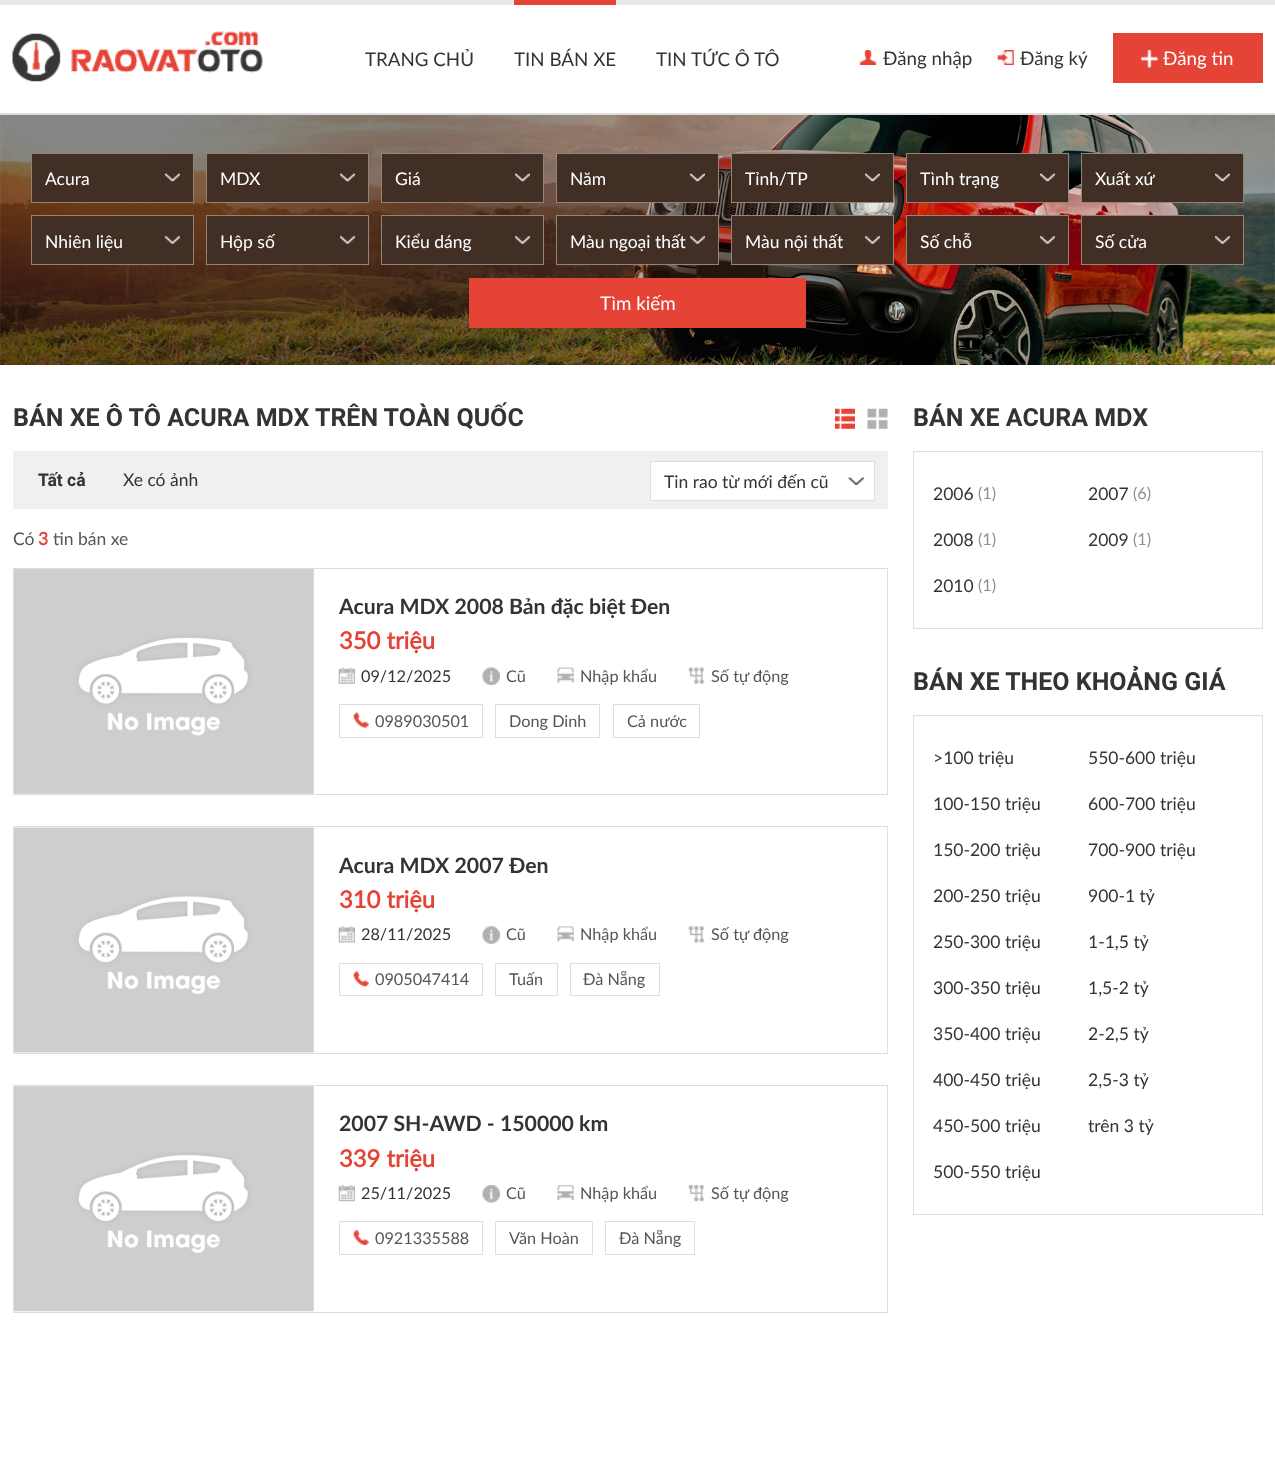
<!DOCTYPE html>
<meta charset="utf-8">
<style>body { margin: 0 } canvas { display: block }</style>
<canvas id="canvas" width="1275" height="1483"></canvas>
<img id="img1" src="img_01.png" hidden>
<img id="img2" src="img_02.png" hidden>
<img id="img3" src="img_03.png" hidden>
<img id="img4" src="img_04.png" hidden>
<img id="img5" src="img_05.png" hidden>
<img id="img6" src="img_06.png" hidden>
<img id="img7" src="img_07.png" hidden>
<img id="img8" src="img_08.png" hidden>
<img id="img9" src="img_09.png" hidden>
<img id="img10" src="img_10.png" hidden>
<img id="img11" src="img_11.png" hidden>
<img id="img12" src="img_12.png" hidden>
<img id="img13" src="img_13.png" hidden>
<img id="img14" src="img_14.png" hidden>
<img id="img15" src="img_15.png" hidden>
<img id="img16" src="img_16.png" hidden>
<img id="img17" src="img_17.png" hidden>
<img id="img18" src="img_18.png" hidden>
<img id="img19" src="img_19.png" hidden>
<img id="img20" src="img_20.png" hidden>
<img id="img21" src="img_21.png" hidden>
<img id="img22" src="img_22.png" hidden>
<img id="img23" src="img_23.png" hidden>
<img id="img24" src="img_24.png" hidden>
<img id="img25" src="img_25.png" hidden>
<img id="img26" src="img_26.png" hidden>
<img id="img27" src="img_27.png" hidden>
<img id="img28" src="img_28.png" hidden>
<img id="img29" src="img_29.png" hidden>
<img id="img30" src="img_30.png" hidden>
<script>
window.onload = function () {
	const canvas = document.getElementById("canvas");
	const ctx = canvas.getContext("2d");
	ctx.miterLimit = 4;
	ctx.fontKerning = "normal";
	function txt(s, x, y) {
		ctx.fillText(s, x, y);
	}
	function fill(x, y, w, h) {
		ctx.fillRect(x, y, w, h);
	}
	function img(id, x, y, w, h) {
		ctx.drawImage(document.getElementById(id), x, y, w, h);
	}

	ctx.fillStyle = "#FFFFFF";
	fill(0, 0, 1275, 1483);
	ctx.fillStyle = "#E8E8E8";
	fill(0, 0, 1275, 5);
	ctx.fillStyle = "#DEDEDE";
	fill(0, 113, 1275, 2);
	img("img1", 12, 31, 251, 51);
	ctx.fillStyle = "#E64337";
	fill(514, 0, 102, 5);
	img("img2", 860, 50, 17, 15);
	img("img3", 997, 50, 17, 15);
	fill(1113, 33, 150, 50);
	img("img4", 1141, 50, 17, 18);
	img("img5", 0, 115, 1275, 250);
	ctx.fillStyle = "#412F26";
	fill(32, 154, 161, 48);
	img("img6", 165, 173, 15, 9);
	ctx.strokeStyle = "#968377";
	ctx.strokeRect(31.5, 153.5, 162, 49);
	fill(207, 154, 161, 48);
	img("img6", 340, 173, 15, 9);
	ctx.strokeRect(206.5, 153.5, 162, 49);
	fill(382, 154, 161, 48);
	img("img6", 515, 173, 15, 9);
	ctx.strokeRect(381.5, 153.5, 162, 49);
	fill(557, 154, 161, 48);
	img("img7", 690, 173, 15, 9);
	ctx.strokeRect(556.5, 153.5, 162, 49);
	fill(732, 154, 161, 48);
	img("img6", 865, 173, 15, 9);
	ctx.strokeRect(731.5, 153.5, 162, 49);
	fill(907, 154, 161, 48);
	img("img7", 1040, 173, 15, 9);
	ctx.strokeRect(906.5, 153.5, 162, 49);
	fill(1082, 154, 161, 48);
	img("img6", 1215, 173, 15, 9);
	ctx.strokeRect(1081.5, 153.5, 162, 49);
	fill(32, 216, 161, 48);
	img("img8", 165, 236, 15, 8);
	ctx.strokeRect(31.5, 215.5, 162, 49);
	fill(207, 216, 161, 48);
	img("img8", 340, 236, 15, 8);
	ctx.strokeRect(206.5, 215.5, 162, 49);
	fill(382, 216, 161, 48);
	img("img8", 515, 236, 15, 8);
	ctx.strokeRect(381.5, 215.5, 162, 49);
	fill(557, 216, 161, 48);
	img("img9", 690, 236, 15, 8);
	ctx.strokeRect(556.5, 215.5, 162, 49);
	fill(732, 216, 161, 48);
	img("img8", 865, 236, 15, 8);
	ctx.strokeRect(731.5, 215.5, 162, 49);
	fill(907, 216, 161, 48);
	img("img9", 1040, 236, 15, 8);
	ctx.strokeRect(906.5, 215.5, 162, 49);
	fill(1082, 216, 161, 48);
	img("img8", 1215, 236, 15, 8);
	ctx.strokeRect(1081.5, 215.5, 162, 49);
	ctx.fillStyle = "#E64337";
	fill(469, 278, 337, 50);
	ctx.fillStyle = "#F0F0F0";
	fill(13, 451, 875, 58);
	img("img10", 835, 408, 20, 21);
	img("img11", 867, 408, 21, 21);
	ctx.fillStyle = "#FFFFFF";
	fill(651, 462, 223, 38);
	img("img12", 848, 477, 16, 8);
	ctx.strokeStyle = "#DEDEDE";
	ctx.strokeRect(650.5, 461.5, 224, 39);
	ctx.strokeRect(13.5, 568.5, 874, 226);
	img("img13", 14, 569, 300, 225);
	img("img14", 338, 667, 17, 17);
	img("img15", 482, 667, 18, 18);
	img("img16", 557, 667, 17, 16);
	img("img17", 688, 667, 16, 17);
	ctx.strokeRect(339.5, 704.5, 143, 33);
	img("img18", 353, 712, 16, 16);
	ctx.strokeRect(495.5, 704.5, 104, 33);
	ctx.strokeRect(613.5, 704.5, 86, 33);
	ctx.strokeRect(13.5, 826.5, 874, 227);
	img("img19", 14, 827, 300, 226);
	img("img20", 338, 926, 17, 17);
	img("img21", 482, 926, 18, 18);
	img("img22", 557, 926, 17, 16);
	img("img23", 688, 926, 16, 17);
	ctx.strokeRect(339.5, 963.5, 143, 32);
	img("img24", 353, 971, 16, 16);
	ctx.strokeRect(495.5, 963.5, 62, 32);
	ctx.strokeRect(570.5, 963.5, 89, 32);
	ctx.strokeRect(13.5, 1085.5, 874, 227);
	img("img25", 14, 1086, 300, 226);
	img("img26", 338, 1185, 17, 17);
	img("img27", 482, 1185, 18, 18);
	img("img28", 557, 1185, 17, 15);
	img("img29", 688, 1185, 16, 17);
	ctx.strokeRect(339.5, 1221.5, 143, 33);
	img("img30", 353, 1230, 16, 15);
	ctx.strokeRect(495.5, 1221.5, 97, 33);
	ctx.strokeRect(605.5, 1221.5, 89, 33);
	ctx.strokeRect(913.5, 451.5, 349, 177);
	ctx.strokeRect(913.5, 715.5, 349, 499);
	ctx.font = "18.75px Lato";
	ctx.fillStyle = "#333333";
	txt("TRANG CHỦ", 365, 66);
	txt("TIN BÁN XE", 514, 66);
	txt("TIN TỨC Ô TÔ", 656, 66);
	txt("Đăng nhập", 883, 65);
	txt("Đăng ký", 1020, 65);
	ctx.fillStyle = "#FFFFFF";
	txt("Đăng tin", 1163, 65);
	ctx.font = "17.5px Lato";
	txt("Acura", 45, 185);
	txt("MDX", 220, 185);
	txt("Giá", 395, 185);
	txt("Năm", 570, 185);
	txt("Tỉnh/TP", 745, 185);
	txt("Tình trạng", 920, 185);
	txt("Xuất xứ", 1095, 185);
	txt("Nhiên liệu", 45, 248);
	txt("Hộp số", 220, 248);
	txt("Kiểu dáng", 395, 248);
	txt("Màu ngoại thất", 570, 248);
	txt("Màu nội thất", 745, 248);
	txt("Số chỗ", 920, 248);
	txt("Số cửa", 1095, 248);
	ctx.font = "18.75px Lato";
	txt("Tìm kiếm", 600, 310);
	ctx.font = "bold 25px Roboto";
	ctx.fillStyle = "#333333";
	txt("BÁN XE Ô TÔ ACURA MDX TRÊN TOÀN QUỐC", 13, 426);
	ctx.font = "bold 17.5px Roboto";
	txt("Tất cả", 38, 486);
	ctx.font = "17.5px Lato";
	txt("Xe có ảnh", 123, 486);
	txt("Tin rao từ mới đến cũ", 664, 488);
	ctx.fillStyle = "#555555";
	txt("Có", 13, 545);
	ctx.font = "bold 17.5px Lato";
	ctx.fillStyle = "#E64337";
	txt("3", 38, 545);
	ctx.font = "17.5px Lato";
	ctx.fillStyle = "#555555";
	txt("tin bán xe", 53, 545);
	ctx.font = "bold 21.25px 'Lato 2'";
	ctx.fillStyle = "#333333";
	txt("Acura MDX 2008 Bản đặc biệt Đen", 339, 614);
	ctx.font = "bold 23.75px Lato";
	ctx.fillStyle = "#E64337";
	txt("350 triệu", 339, 649);
	ctx.font = "16.25px Lato";
	ctx.fillStyle = "#333333";
	txt("09/12/2025", 361, 682);
	ctx.fillStyle = "#555555";
	txt("Cũ", 506, 682);
	txt("Nhập khẩu", 580, 682);
	txt("Số tự động", 711, 682);
	txt("0989030501", 375, 727);
	txt("Dong Dinh", 509, 727);
	txt("Cả nước", 627, 727);
	ctx.font = "bold 21.25px 'Lato 2'";
	ctx.fillStyle = "#333333";
	txt("Acura MDX 2007 Đen", 339, 873);
	ctx.font = "bold 23.75px Lato";
	ctx.fillStyle = "#E64337";
	txt("310 triệu", 339, 908);
	ctx.font = "16.25px Lato";
	ctx.fillStyle = "#333333";
	txt("28/11/2025", 361, 940);
	ctx.fillStyle = "#555555";
	txt("Cũ", 506, 940);
	txt("Nhập khẩu", 580, 940);
	txt("Số tự động", 711, 940);
	txt("0905047414", 375, 985);
	txt("Tuấn", 509, 985);
	txt("Đà Nẵng", 583, 985);
	ctx.font = "bold 21.25px 'Lato 2'";
	ctx.fillStyle = "#333333";
	txt("2007 SH-AWD - 150000 km", 339, 1131);
	ctx.font = "bold 23.75px Lato";
	ctx.fillStyle = "#E64337";
	txt("339 triệu", 339, 1167);
	ctx.font = "16.25px Lato";
	ctx.fillStyle = "#333333";
	txt("25/11/2025", 361, 1199);
	ctx.fillStyle = "#555555";
	txt("Cũ", 506, 1199);
	txt("Nhập khẩu", 580, 1199);
	txt("Số tự động", 711, 1199);
	txt("0921335588", 375, 1244);
	txt("Văn Hoàn", 509, 1244);
	txt("Đà Nẵng", 619, 1244);
	ctx.font = "bold 25px Roboto";
	ctx.fillStyle = "#333333";
	txt("BÁN XE ACURA MDX", 913, 426);
	ctx.font = "17.5px Lato";
	txt("2006", 933, 500);
	ctx.font = "16.25px Lato";
	ctx.fillStyle = "#909090";
	txt("(1)", 978, 499);
	ctx.font = "17.5px Lato";
	ctx.fillStyle = "#333333";
	txt("2007", 1088, 500);
	ctx.font = "16.25px Lato";
	ctx.fillStyle = "#909090";
	txt("(6)", 1133, 499);
	ctx.font = "17.5px Lato";
	ctx.fillStyle = "#333333";
	txt("2008", 933, 546);
	ctx.font = "16.25px Lato";
	ctx.fillStyle = "#909090";
	txt("(1)", 978, 545);
	ctx.font = "17.5px Lato";
	ctx.fillStyle = "#333333";
	txt("2009", 1088, 546);
	ctx.font = "16.25px Lato";
	ctx.fillStyle = "#909090";
	txt("(1)", 1133, 545);
	ctx.font = "17.5px Lato";
	ctx.fillStyle = "#333333";
	txt("2010", 933, 592);
	ctx.font = "16.25px Lato";
	ctx.fillStyle = "#909090";
	txt("(1)", 978, 591);
	ctx.font = "bold 25px Roboto";
	ctx.fillStyle = "#333333";
	txt("BÁN XE THEO KHOẢNG GIÁ", 913, 690);
	ctx.font = "17.5px Lato";
	txt(">100 triệu", 933, 764);
	txt("100-150 triệu", 933, 810);
	txt("150-200 triệu", 933, 856);
	txt("200-250 triệu", 933, 902);
	txt("250-300 triệu", 933, 948);
	txt("300-350 triệu", 933, 994);
	txt("350-400 triệu", 933, 1040);
	txt("400-450 triệu", 933, 1086);
	txt("450-500 triệu", 933, 1132);
	txt("500-550 triệu", 933, 1178);
	txt("550-600 triệu", 1088, 764);
	txt("600-700 triệu", 1088, 810);
	txt("700-900 triệu", 1088, 856);
	txt("900-1 tỷ", 1088, 902);
	txt("1-1,5 tỷ", 1088, 948);
	txt("1,5-2 tỷ", 1088, 994);
	txt("2-2,5 tỷ", 1088, 1040);
	txt("2,5-3 tỷ", 1088, 1086);
	txt("trên 3 tỷ", 1088, 1132);
};
</script>
